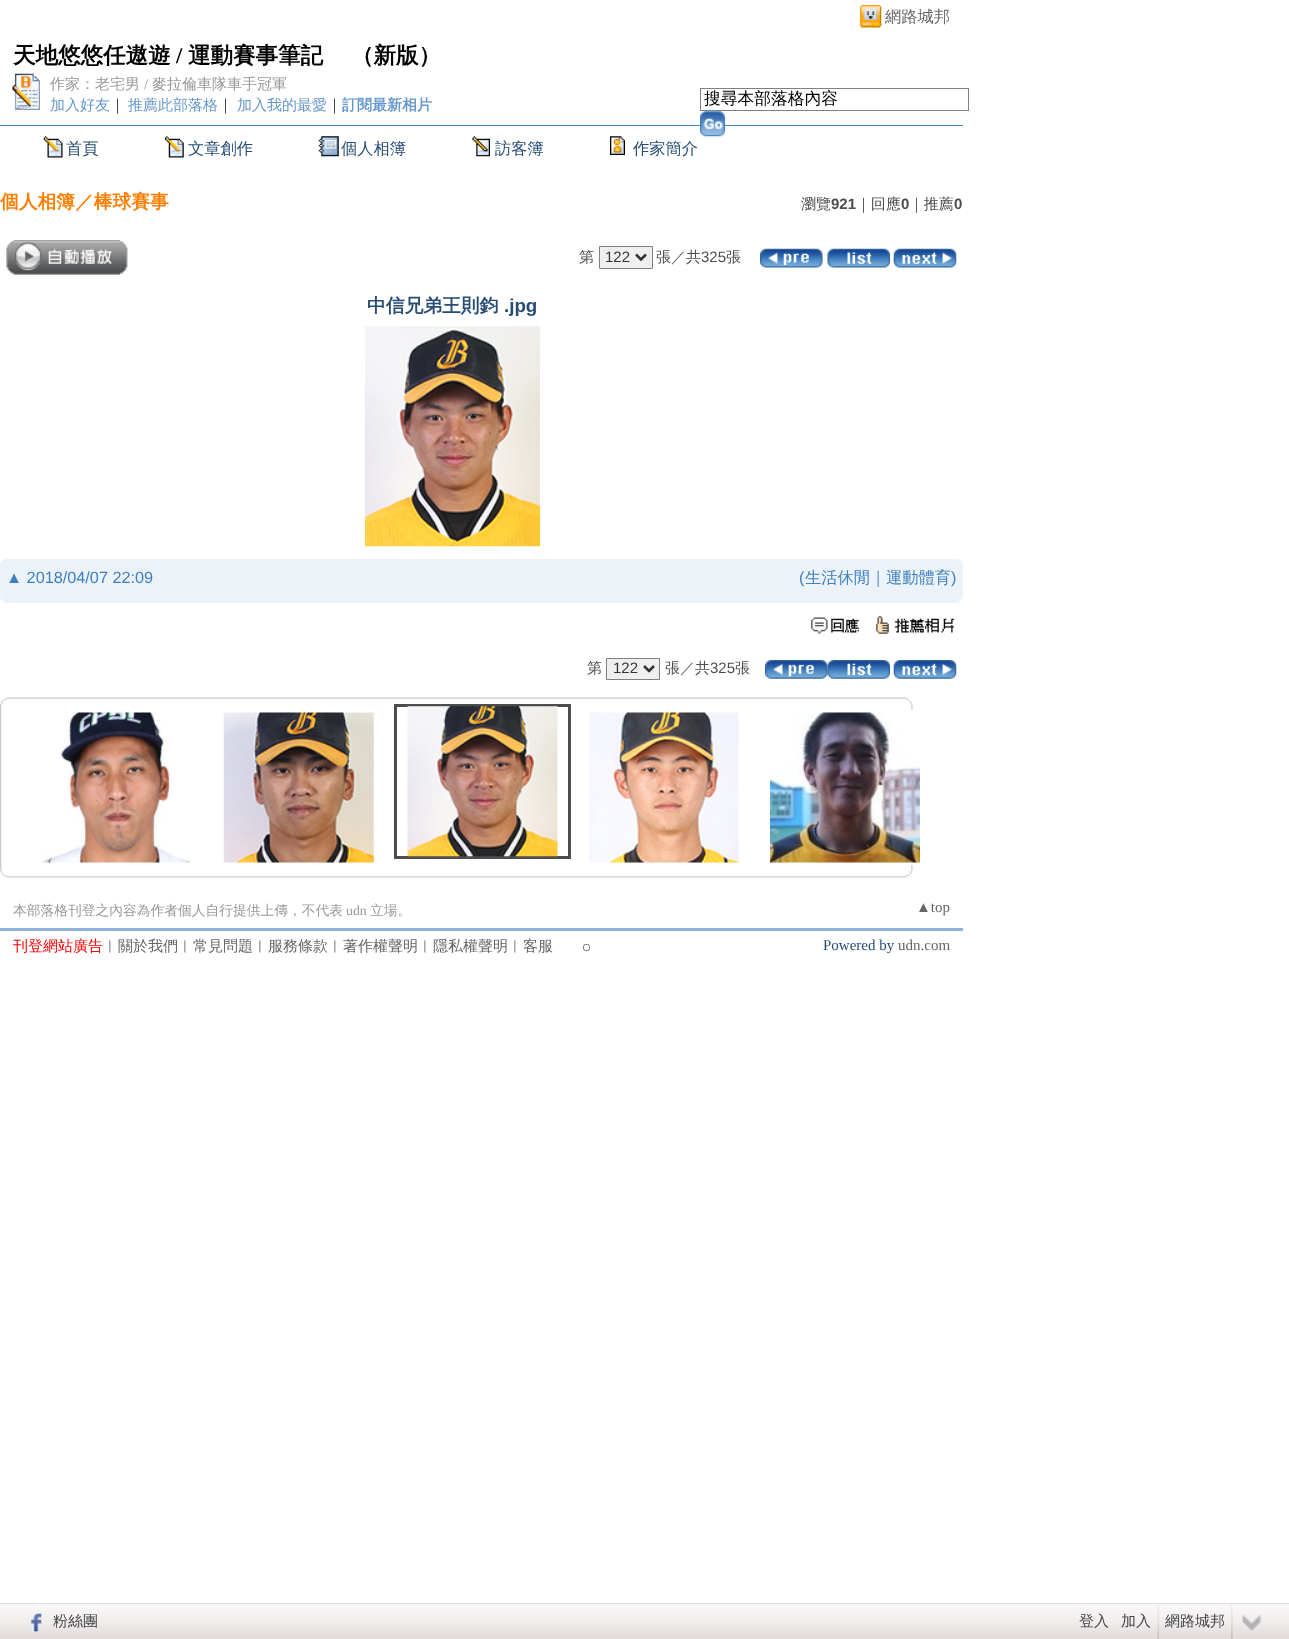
<!DOCTYPE html>
<meta charset="utf-8">
<style>body { margin: 0 } canvas { display: block }</style>
<canvas id="canvas" width="1289" height="1639"></canvas>
<img id="img1" src="img_01.png" hidden>
<img id="img2" src="img_02.png" hidden>
<img id="img3" src="img_03.png" hidden>
<img id="img4" src="img_04.png" hidden>
<img id="img5" src="img_05.png" hidden>
<img id="img6" src="img_06.png" hidden>
<img id="img7" src="img_07.png" hidden>
<img id="img8" src="img_08.png" hidden>
<img id="img9" src="img_09.png" hidden>
<img id="img10" src="img_10.png" hidden>
<img id="img11" src="img_11.png" hidden>
<img id="img12" src="img_12.png" hidden>
<img id="img13" src="img_13.png" hidden>
<img id="img14" src="img_14.png" hidden>
<img id="img15" src="img_15.png" hidden>
<img id="img16" src="img_16.png" hidden>
<img id="img17" src="img_17.png" hidden>
<img id="img18" src="img_18.png" hidden>
<img id="img19" src="img_19.png" hidden>
<img id="img20" src="img_20.png" hidden>
<img id="img21" src="img_21.png" hidden>
<img id="img22" src="img_22.png" hidden>
<img id="img23" src="img_23.png" hidden>
<img id="img24" src="img_24.png" hidden>
<img id="img25" src="img_25.png" hidden>
<img id="img26" src="img_26.png" hidden>
<img id="img27" src="img_27.png" hidden>
<img id="img28" src="img_28.png" hidden>
<img id="img29" src="img_29.png" hidden>
<img id="img30" src="img_30.png" hidden>
<img id="img31" src="img_31.png" hidden>
<img id="img32" src="img_32.png" hidden>
<img id="img33" src="img_33.png" hidden>
<img id="img34" src="img_34.png" hidden>
<img id="img35" src="img_35.png" hidden>
<script>
window.onload = function () {
	const canvas = document.getElementById("canvas");
	const ctx = canvas.getContext("2d");
	ctx.miterLimit = 4;
	ctx.fontKerning = "normal";
	function txt(s, x, y) {
		ctx.fillText(s, x, y);
	}
	function fill(x, y, w, h) {
		ctx.fillRect(x, y, w, h);
	}
	function img(id, x, y, w, h) {
		ctx.drawImage(document.getElementById(id), x, y, w, h);
	}

	ctx.fillStyle = "#FFFFFF";
	fill(0, 0, 1289, 1639);
	img("img1", 860, 5, 22, 23);
	img("img2", 12, 73, 28, 37);
	ctx.strokeStyle = "#808080";
	ctx.strokeRect(700.5, 88.5, 268, 22);
	ctx.fillStyle = "#4180C0";
	fill(0, 125, 963, 1);
	img("img3", 700, 111, 25, 26);
	img("img4", 43, 136, 20, 22);
	img("img5", 165, 136, 19, 22);
	img("img6", 318, 136, 21, 21);
	img("img7", 472, 136, 18, 21);
	img("img8", 610, 136, 15, 19);
	img("img9", 6, 240, 122, 35);
	ctx.fillStyle = "#EFEFEF";
	ctx.beginPath();
	ctx.rect(599.5, 246.5, 53, 22);
	ctx.fill();
	ctx.stroke();
	ctx.beginPath();
	ctx.moveTo(636, 254.5);
	ctx.lineTo(641, 259.5);
	ctx.lineTo(646, 254.5);
	ctx.strokeStyle = "#333333";
	ctx.lineWidth = 2.5;
	ctx.stroke();
	img("img10", 760, 248, 63, 20);
	img("img11", 827, 248, 63, 20);
	img("img12", 893, 248, 64, 20);
	img("img13", 365, 326, 175, 221);
	img("img14", 0, 558, 6, 7);
	ctx.fillStyle = "#EBF2F8";
	fill(6, 559, 950, 6);
	img("img15", 956, 558, 7, 7);
	fill(0, 565, 963, 31);
	img("img16", 0, 596, 6, 7);
	fill(6, 596, 950, 7);
	img("img17", 956, 596, 7, 7);
	img("img18", 811, 617, 48, 17);
	img("img19", 876, 616, 78, 18);
	ctx.fillStyle = "#EFEFEF";
	ctx.beginPath();
	ctx.rect(606.5, 658.5, 53, 21);
	ctx.fill();
	ctx.strokeStyle = "#808080";
	ctx.lineWidth = 1;
	ctx.stroke();
	ctx.beginPath();
	ctx.moveTo(644, 666);
	ctx.lineTo(649, 671);
	ctx.lineTo(654, 666);
	ctx.strokeStyle = "#333333";
	ctx.lineWidth = 2.5;
	ctx.stroke();
	img("img20", 765, 660, 63, 19);
	img("img21", 827, 660, 63, 19);
	img("img22", 893, 660, 64, 19);
	img("img23", 0, 697, 913, 10);
	img("img24", 0, 706, 913, 163);
	img("img25", 42, 712, 149, 151);
	img("img26", 223, 712, 151, 151);
	ctx.strokeStyle = "#4D4D4D";
	ctx.lineWidth = 3;
	ctx.strokeRect(395.5, 705.5, 174, 152);
	img("img27", 407, 706, 151, 151);
	img("img28", 589, 712, 150, 151);
	ctx.strokeStyle = "#FFFFFF";
	ctx.strokeRect(757.5, 711.5, 176, 152);
	img("img29", 770, 712, 150, 151);
	img("img30", 0, 868, 913, 10);
	ctx.fillStyle = "#8DB3D9";
	fill(0, 928, 963, 3);
	ctx.beginPath();
	ctx.roundRect(583.5, 944.5, 6, 6, 2);
	ctx.strokeStyle = "#767676";
	ctx.lineWidth = 1;
	ctx.stroke();
	img("img31", 0, 1603, 1289, 36);
	img("img32", 31, 1613, 11, 19);
	img("img33", 1157, 1605, 3, 34);
	img("img34", 1231, 1605, 2, 34);
	img("img35", 1242, 1614, 20, 18);
	ctx.font = "500 16.25px WenQuanYi Zen Hei";
	ctx.fillStyle = "#666666";
	txt("網路城邦", 885, 22);
	ctx.font = "bold 22.5px WenQuanYi Zen Hei";
	ctx.fillStyle = "#000000";
	txt("天地悠悠任遨遊", 13, 63);
	ctx.font = "bold 22.5px Liberation Serif";
	txt("/", 176, 63);
	ctx.font = "bold 22.5px WenQuanYi Zen Hei";
	txt("運動賽事筆記", 188, 63);
	txt("（新版）", 351, 63);
	ctx.font = "500 15px WenQuanYi Zen Hei";
	ctx.fillStyle = "#999999";
	txt("作家：老宅男", 50, 89);
	ctx.font = "15px Liberation Serif";
	txt("/", 144, 89);
	ctx.font = "500 15px WenQuanYi Zen Hei";
	txt("麥拉倫車隊車手冠軍", 152, 89);
	ctx.fillStyle = "#6698CC";
	txt("加入好友", 50, 110);
	ctx.fillStyle = "#333333";
	txt("｜", 110, 110);
	ctx.fillStyle = "#6698CC";
	txt("推薦此部落格", 128, 110);
	ctx.fillStyle = "#333333";
	txt("｜", 218, 110);
	ctx.fillStyle = "#6698CC";
	txt("加入我的最愛", 237, 110);
	ctx.fillStyle = "#333333";
	txt("｜", 327, 110);
	ctx.font = "bold 15px WenQuanYi Zen Hei";
	ctx.fillStyle = "#6698CC";
	txt("訂閱最新相片", 342, 110);
	ctx.font = "500 16.75px WenQuanYi Zen Hei";
	ctx.fillStyle = "#000000";
	txt("搜尋本部落格內容", 704, 104);
	ctx.font = "500 16.25px WenQuanYi Zen Hei";
	ctx.fillStyle = "#274D74";
	txt("首頁", 66, 154);
	txt("文章創作", 188, 154);
	txt("個人相簿", 341, 154);
	txt("訪客簿", 495, 154);
	txt("作家簡介", 633, 154);
	ctx.font = "bold 18.75px WenQuanYi Zen Hei";
	ctx.fillStyle = "#FF7E00";
	txt("個人相簿／棒球賽事", 0, 208);
	ctx.font = "500 15px WenQuanYi Zen Hei";
	ctx.fillStyle = "#4D4D4D";
	txt("瀏覽", 801, 209);
	ctx.font = "bold 15px Liberation Sans";
	txt("921", 831, 209);
	ctx.font = "500 15px WenQuanYi Zen Hei";
	txt("｜回應", 856, 209);
	ctx.font = "bold 15px Liberation Sans";
	txt("0", 901, 209);
	ctx.font = "500 15px WenQuanYi Zen Hei";
	txt("｜推薦", 909, 209);
	ctx.font = "bold 15px Liberation Sans";
	txt("0", 954, 209);
	ctx.font = "500 15px WenQuanYi Zen Hei";
	txt("第", 579, 262);
	ctx.font = "15px Liberation Sans";
	ctx.fillStyle = "#333333";
	txt("122", 605, 262);
	ctx.font = "500 15px WenQuanYi Zen Hei";
	ctx.fillStyle = "#4D4D4D";
	txt("張／共", 656, 262);
	ctx.font = "15px Liberation Sans";
	txt("325", 701, 262);
	ctx.font = "500 15px WenQuanYi Zen Hei";
	txt("張", 726, 262);
	ctx.font = "bold 18.75px WenQuanYi Zen Hei";
	ctx.fillStyle = "#274D74";
	txt("中信兄弟王則鈞", 367, 312);
	ctx.font = "bold 18.75px Liberation Sans";
	txt(".jpg", 504, 312);
	ctx.font = "16.25px Liberation Sans";
	ctx.fillStyle = "#4180C0";
	txt("▲ 2018/04/07 22:09", 6, 583);
	txt("(", 799, 583);
	ctx.font = "500 16.25px WenQuanYi Zen Hei";
	txt("生活休閒｜運動體育", 805, 583);
	ctx.font = "16.25px Liberation Sans";
	txt(")", 951, 583);
	ctx.font = "500 15px WenQuanYi Zen Hei";
	ctx.fillStyle = "#4D4D4D";
	txt("第", 587, 673);
	ctx.font = "15px Liberation Sans";
	ctx.fillStyle = "#333333";
	txt("122", 613, 673);
	ctx.font = "500 15px WenQuanYi Zen Hei";
	ctx.fillStyle = "#4D4D4D";
	txt("張／共", 665, 673);
	ctx.font = "15px Liberation Sans";
	txt("325", 710, 673);
	ctx.font = "500 15px WenQuanYi Zen Hei";
	txt("張", 735, 673);
	ctx.font = "500 13.75px WenQuanYi Zen Hei";
	ctx.fillStyle = "#999999";
	txt("本部落格刊登之內容為作者個人自行提供上傳，不代表", 13, 915);
	ctx.font = "13.75px Liberation Serif";
	txt("udn", 346, 915);
	ctx.font = "500 13.75px WenQuanYi Zen Hei";
	txt("立場。", 370, 915);
	ctx.font = "15px Liberation Serif";
	ctx.fillStyle = "#666666";
	txt("▲top", 916, 912);
	ctx.font = "500 15px WenQuanYi Zen Hei";
	ctx.fillStyle = "#FF0000";
	txt("刊登網站廣告", 13, 951);
	ctx.fillStyle = "#333333";
	txt("︱", 103, 951);
	ctx.fillStyle = "#666666";
	txt("關於我們", 118, 951);
	ctx.fillStyle = "#333333";
	txt("︱", 178, 951);
	ctx.fillStyle = "#666666";
	txt("常見問題", 193, 951);
	ctx.fillStyle = "#333333";
	txt("︱", 253, 951);
	ctx.fillStyle = "#666666";
	txt("服務條款", 268, 951);
	ctx.fillStyle = "#333333";
	txt("︱", 328, 951);
	ctx.fillStyle = "#666666";
	txt("著作權聲明", 343, 951);
	ctx.fillStyle = "#333333";
	txt("︱", 418, 951);
	ctx.fillStyle = "#666666";
	txt("隱私權聲明", 433, 951);
	ctx.fillStyle = "#333333";
	txt("︱", 508, 951);
	ctx.fillStyle = "#666666";
	txt("客服", 523, 951);
	ctx.font = "15px Liberation Serif";
	ctx.fillStyle = "#274D74";
	txt("Powered by", 823, 950);
	ctx.fillStyle = "#666666";
	txt("udn.com", 898, 950);
	ctx.font = "500 15px WenQuanYi Zen Hei";
	ctx.fillStyle = "#444444";
	txt("粉絲團", 53, 1626);
	txt("登入", 1079, 1626);
	txt("加入", 1121, 1626);
	txt("網路城邦", 1165, 1626);
};
</script>
